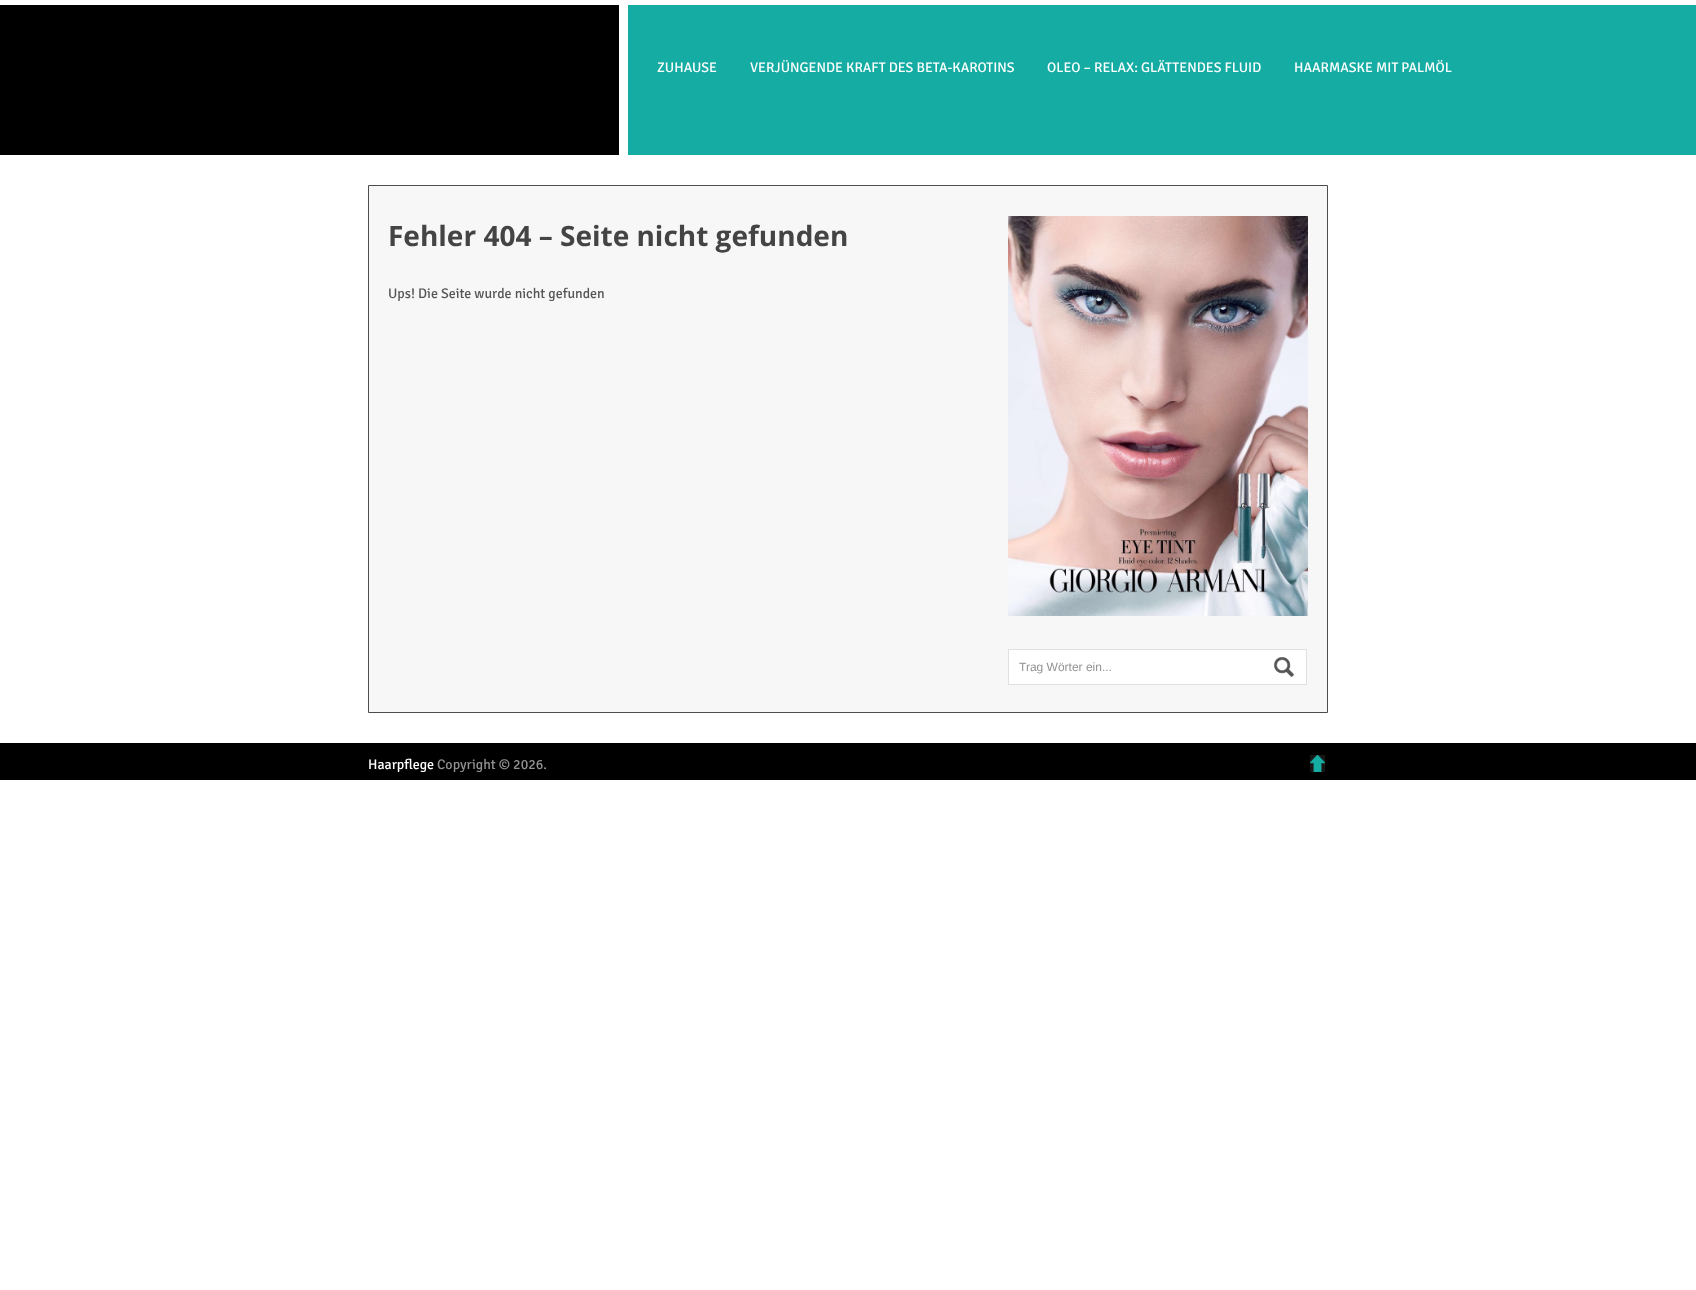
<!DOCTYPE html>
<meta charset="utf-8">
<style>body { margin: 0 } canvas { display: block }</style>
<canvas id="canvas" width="1696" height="1290"></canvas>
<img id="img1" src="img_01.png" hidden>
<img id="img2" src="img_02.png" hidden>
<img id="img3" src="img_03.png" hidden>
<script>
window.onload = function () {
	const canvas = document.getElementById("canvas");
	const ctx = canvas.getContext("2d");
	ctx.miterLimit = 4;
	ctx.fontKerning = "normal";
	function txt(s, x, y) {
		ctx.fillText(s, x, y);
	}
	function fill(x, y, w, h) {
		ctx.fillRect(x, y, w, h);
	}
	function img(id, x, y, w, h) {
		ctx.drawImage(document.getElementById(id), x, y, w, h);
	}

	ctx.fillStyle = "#FFFFFF";
	fill(0, 0, 1696, 1290);
	ctx.fillStyle = "#000000";
	fill(0, 5, 619, 150);
	ctx.fillStyle = "#15ACA3";
	fill(628, 5, 1068, 150);
	ctx.fillStyle = "#F7F7F7";
	ctx.beginPath();
	ctx.rect(368.5, 185.5, 959, 527);
	ctx.fill();
	ctx.strokeStyle = "#4D4D4D";
	ctx.stroke();
	img("img1", 1008, 216, 300, 400);
	ctx.fillStyle = "#FFFFFF";
	fill(1009, 650, 297, 34);
	img("img2", 1274, 657, 20, 20);
	ctx.strokeStyle = "#E0E0E0";
	ctx.strokeRect(1008.5, 649.5, 298, 35);
	ctx.fillStyle = "#000000";
	fill(0, 743, 1696, 37);
	ctx.fillStyle = "#15ACA3";
	fill(1310, 755, 15, 17);
	img("img3", 1310, 755, 15, 17);
	ctx.font = "14px Signika";
	ctx.fillStyle = "#FFFFFF";
	txt("ZUHAUSE", 657, 72);
	txt("VERJÜNGENDE KRAFT DES BETA-KAROTINS", 750, 72);
	txt("OLEO – RELAX: GLÄTTENDES FLUID", 1047, 72);
	txt("HAARMASKE MIT PALMÖL", 1294, 72);
	ctx.font = "bold 28px Open Sans";
	ctx.fillStyle = "#444444";
	txt("Fehler 404 – Seite nicht gefunden", 388, 246);
	ctx.font = "14px Signika";
	ctx.fillStyle = "#555555";
	txt("Ups! Die Seite wurde nicht gefunden", 388, 298);
	ctx.font = "12px Liberation Sans";
	ctx.fillStyle = "#929292";
	txt("Trag Wörter ein...", 1019, 671);
	ctx.font = "14px Signika";
	ctx.fillStyle = "#FFFFFF";
	txt("Haarpflege", 368, 769);
	ctx.fillStyle = "#929292";
	txt("Copyright © 2026.", 437, 769);
};
</script>
